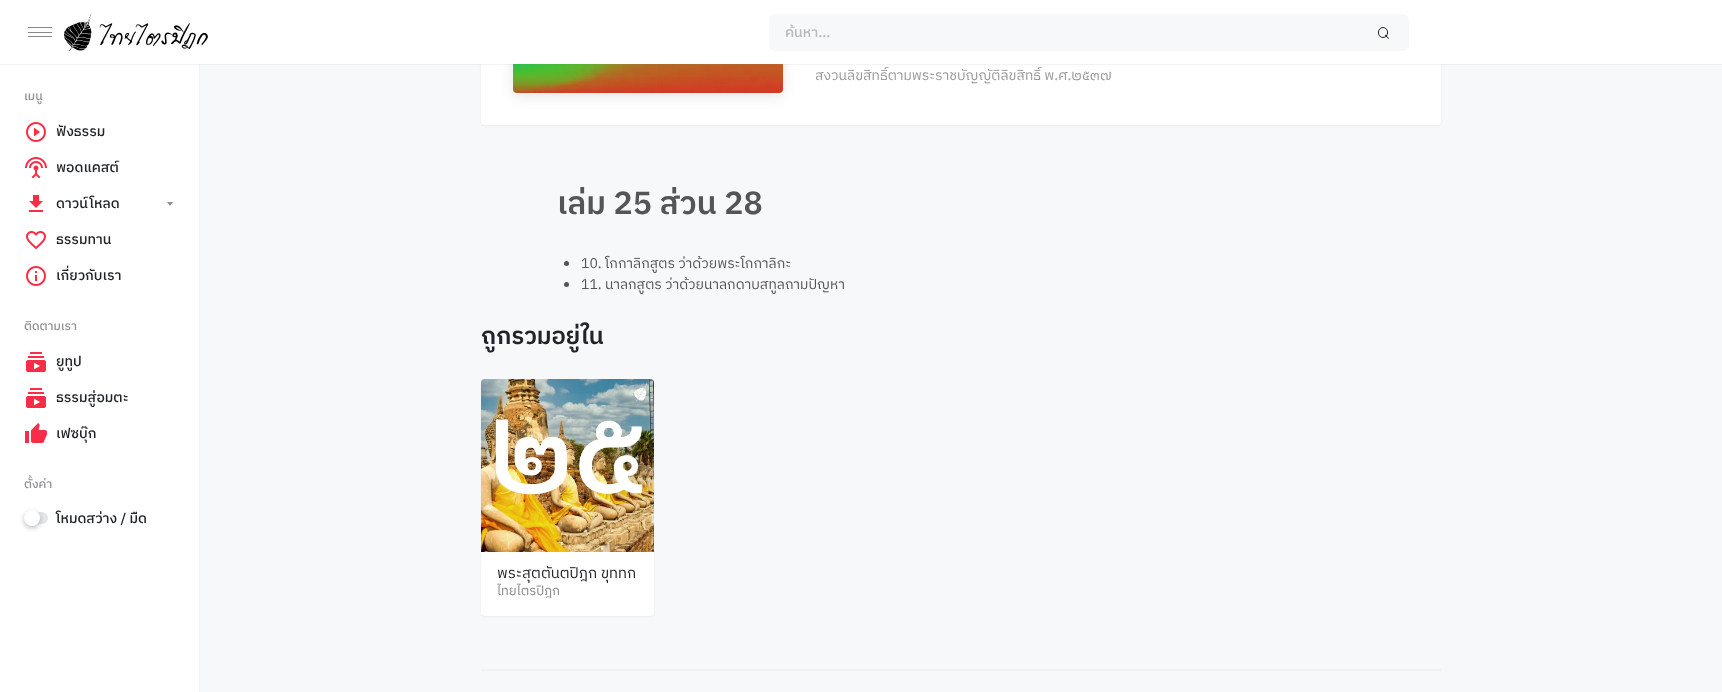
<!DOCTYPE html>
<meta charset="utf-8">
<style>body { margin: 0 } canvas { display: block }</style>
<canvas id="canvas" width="1722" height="692"></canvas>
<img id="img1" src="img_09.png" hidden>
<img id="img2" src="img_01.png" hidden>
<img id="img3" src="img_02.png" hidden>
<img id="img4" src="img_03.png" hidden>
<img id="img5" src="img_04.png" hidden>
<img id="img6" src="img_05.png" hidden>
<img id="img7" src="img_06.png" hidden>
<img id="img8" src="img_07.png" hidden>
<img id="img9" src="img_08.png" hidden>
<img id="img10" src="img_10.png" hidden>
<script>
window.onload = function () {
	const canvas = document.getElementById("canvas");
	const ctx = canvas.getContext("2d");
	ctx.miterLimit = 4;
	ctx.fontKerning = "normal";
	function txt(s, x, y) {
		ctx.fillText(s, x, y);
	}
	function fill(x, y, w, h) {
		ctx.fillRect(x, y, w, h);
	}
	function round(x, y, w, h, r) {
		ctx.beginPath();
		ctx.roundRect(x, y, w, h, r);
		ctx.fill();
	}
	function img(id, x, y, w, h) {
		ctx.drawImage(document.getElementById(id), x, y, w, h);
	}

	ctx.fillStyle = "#F7F8F9";
	fill(0, 0, 1722, 692);
	ctx.fillStyle = "#FFFFFF";
	fill(0, 64, 199, 628);
	ctx.fillStyle = "#F3F4F5";
	fill(199, 64, 1, 628);
	ctx.fillStyle = "rgba(0, 0, 0, 0.05)";
	ctx.filter = "blur(1px)";
	ctx.beginPath();
	ctx.roundRect(481, -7, 960, 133, 4);
	ctx.fill();
	ctx.filter = "none";
	ctx.fillStyle = "#FFFFFF";
	round(481, -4, 960, 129, 4);
	ctx.fillStyle = "rgba(0, 0, 0, 0.1)";
	ctx.filter = "blur(7px)";
	ctx.beginPath();
	ctx.roundRect(513, -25, 270, 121, 4);
	ctx.fill();
	ctx.filter = "none";
	img("img1", 513, 64, 270, 29);
	ctx.fillStyle = "rgba(130, 140, 150, 0.1)";
	ctx.filter = "blur(0.5px)";
	ctx.beginPath();
	ctx.rect(0, 1, 1722, 64);
	ctx.fill();
	ctx.filter = "none";
	ctx.fillStyle = "#FFFFFF";
	fill(0, 0, 1722, 64);
	ctx.fillStyle = "#888888";
	round(28, 32, 24, 1, 0.5);
	round(28, 27, 24, 1, 0.5);
	round(28, 36, 24, 1, 0.5);
	img("img2", 64, 13, 144, 38);
	ctx.fillStyle = "#F7F8F9";
	round(769, 14, 640, 37, 6);
	ctx.beginPath();
	ctx.roundRect(1378.5, 27.5, 9, 10, 4.5);
	ctx.strokeStyle = "#212529";
	ctx.stroke();
	ctx.fillStyle = "#212529";
	ctx.beginPath();
	ctx.moveTo(1386, 35);
	ctx.lineTo(1389, 38.5);
	ctx.bezierCurveTo(1389, 39.5, 1388, 38.5, 1386.5, 37);
	ctx.lineTo(1385, 35.5);
	ctx.bezierCurveTo(1384.5, 35, 1385.5, 34.5, 1386, 35);
	ctx.closePath();
	ctx.fill();
	img("img3", 26, 122, 20, 20);
	img("img4", 25, 157, 22, 22);
	img("img5", 29, 195, 14, 17);
	ctx.fillStyle = "#909294";
	ctx.beginPath();
	ctx.moveTo(167, 202);
	ctx.lineTo(173, 202);
	ctx.lineTo(170, 206);
	ctx.closePath();
	ctx.fill();
	img("img6", 26, 231, 20, 19);
	img("img7", 26, 266, 20, 20);
	img("img8", 26, 352, 20, 20);
	img("img8", 26, 388, 20, 20);
	img("img9", 25, 423, 22, 20);
	ctx.fillStyle = "#E4E6E8";
	round(24, 512, 24, 12, 6);
	ctx.fillStyle = "rgba(0, 0, 0, 0.26)";
	ctx.filter = "blur(2.5px)";
	ctx.beginPath();
	ctx.roundRect(24, 512, 16, 16, 8);
	ctx.fill();
	ctx.filter = "none";
	ctx.fillStyle = "#FFFFFF";
	ctx.beginPath();
	ctx.arc(32, 518, 8, 0, Math.PI * 2);
	ctx.fill();
	ctx.fillStyle = "#555555";
	ctx.beginPath();
	ctx.arc(566.5, 263.5, 2.5, 0, Math.PI * 2);
	ctx.fill();
	ctx.beginPath();
	ctx.arc(566.5, 284.5, 2.5, 0, Math.PI * 2);
	ctx.fill();
	ctx.save();
	ctx.beginPath();
	ctx.rect(481, 379, 960, 241);
	ctx.clip();
	ctx.fillStyle = "#EAECEE";
	ctx.beginPath();
	ctx.moveTo(485, 378);
	ctx.bezierCurveTo(482, 378, 481, 380, 481, 383);
	ctx.bezierCurveTo(481, 381, 483, 379, 485, 379);
	ctx.lineTo(650, 379);
	ctx.bezierCurveTo(652, 379, 654, 381, 654, 383);
	ctx.bezierCurveTo(654, 380, 653, 378, 650, 378);
	ctx.closePath();
	ctx.fill();
	ctx.restore();
	ctx.fillStyle = "rgba(0, 0, 0, 0.05)";
	ctx.filter = "blur(1px)";
	ctx.beginPath();
	ctx.roundRect(481, 380, 173, 237, 4);
	ctx.fill();
	ctx.filter = "none";
	ctx.fillStyle = "#FFFFFF";
	round(481, 379, 173, 237, 4);
	img("img10", 481, 379, 173, 173);
	ctx.fillStyle = "#EFF1F3";
	fill(481, 669, 960, 2);
	ctx.save();
	ctx.beginPath();
	ctx.rect(785, 21, 557, 23);
	ctx.clip();
	ctx.font = "500 14px IBM Plex Sans Thai";
	ctx.fillStyle = "#B7B9BB";
	txt("ค้นหา...", 785, 37);
	ctx.restore();
	ctx.font = "500 12px IBM Plex Sans Thai";
	ctx.fillStyle = "#909294";
	txt("เมนู", 24, 100);
	ctx.font = "500 14px IBM Plex Sans Thai";
	ctx.fillStyle = "#212529";
	txt("ฟังธรรม", 56, 136);
	txt("พอดแคสต์", 56, 172);
	txt("ดาวน์โหลด", 56, 208);
	txt("ธรรมทาน", 56, 244);
	txt("เกี่ยวกับเรา", 56, 280);
	ctx.font = "500 12px IBM Plex Sans Thai";
	ctx.fillStyle = "#909294";
	txt("ติดตามเรา", 24, 330);
	ctx.font = "500 14px IBM Plex Sans Thai";
	ctx.fillStyle = "#212529";
	txt("ยูทูป", 56, 366);
	txt("ธรรมสู่อมตะ", 56, 402);
	txt("เฟซบุ๊ก", 56, 438);
	ctx.font = "500 12px IBM Plex Sans Thai";
	ctx.fillStyle = "#909294";
	txt("ตั้งค่า", 24, 488);
	ctx.font = "500 14px IBM Plex Sans Thai";
	ctx.fillStyle = "#212529";
	txt("โหมดสว่าง / มืด", 56, 523);
	ctx.font = "14px IBM Plex Sans Thai";
	ctx.fillStyle = "#999999";
	txt("สงวนลิขสิทธิ์ตามพระราชบัญญัติลิขสิทธิ์ พ.ศ.๒๕๓๗", 815, 80);
	ctx.font = "600 32px IBM Plex Sans Thai";
	ctx.fillStyle = "#555555";
	txt("เล่ม 25 ส่วน 28", 557, 214);
	ctx.font = "14px IBM Plex Sans Thai";
	txt("10. โกกาลิกสูตร ว่าด้วยพระโกกาลิกะ", 581, 268);
	txt("11. นาลกสูตร ว่าด้วยนาลกดาบสทูลถามปัญหา", 581, 289);
	ctx.font = "600 24px IBM Plex Sans Thai";
	ctx.fillStyle = "#212529";
	txt("ถูกรวมอยู่ใน", 481, 344);
	ctx.save();
	ctx.beginPath();
	ctx.rect(497, 564, 141, 19);
	ctx.clip();
	ctx.font = "15px IBM Plex Sans Thai";
	txt("พระสุตตันตปิฎก ขุททก", 497, 578);
	ctx.restore();
	ctx.font = "13px IBM Plex Sans Thai";
	ctx.fillStyle = "#888888";
	txt("ไทยไตรปิฎก", 497, 595);
};
</script>
